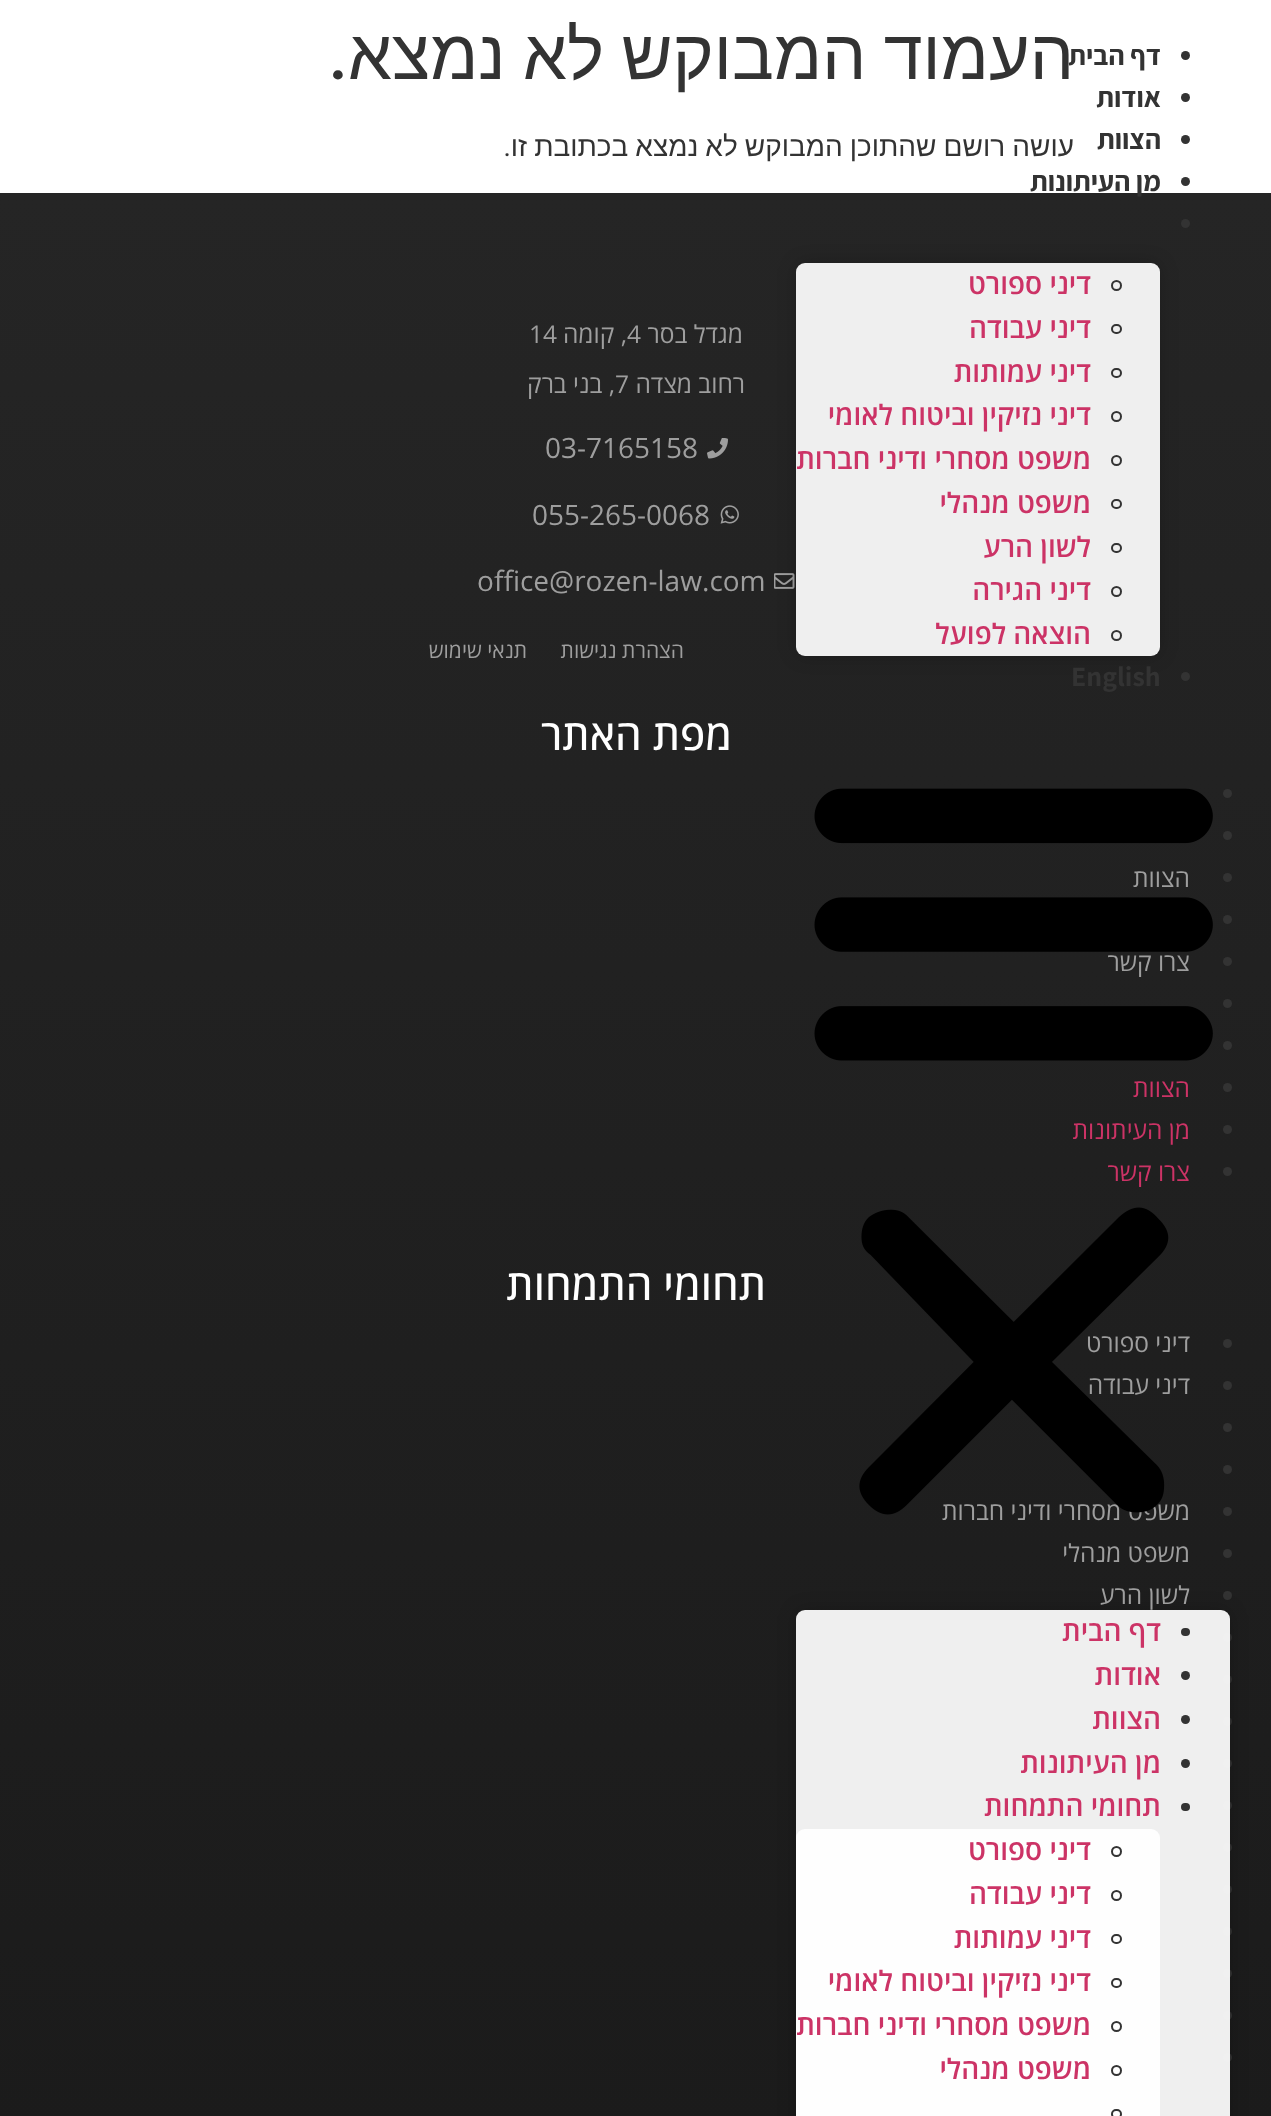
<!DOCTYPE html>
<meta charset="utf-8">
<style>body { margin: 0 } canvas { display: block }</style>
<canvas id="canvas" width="1271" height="2116"></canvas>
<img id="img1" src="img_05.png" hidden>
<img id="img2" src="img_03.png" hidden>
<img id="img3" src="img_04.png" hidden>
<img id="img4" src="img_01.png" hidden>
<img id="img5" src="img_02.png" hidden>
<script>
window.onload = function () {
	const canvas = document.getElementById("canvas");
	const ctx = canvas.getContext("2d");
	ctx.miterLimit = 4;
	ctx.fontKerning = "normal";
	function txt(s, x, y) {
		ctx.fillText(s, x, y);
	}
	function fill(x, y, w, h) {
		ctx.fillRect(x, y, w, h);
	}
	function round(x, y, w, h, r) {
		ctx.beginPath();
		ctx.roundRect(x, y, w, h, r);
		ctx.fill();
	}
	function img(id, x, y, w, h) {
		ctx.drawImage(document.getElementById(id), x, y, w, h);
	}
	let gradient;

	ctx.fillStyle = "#FFFFFF";
	fill(0, 0, 1271, 2116);
	ctx.fillStyle = "#333333";
	ctx.beginPath();
	ctx.arc(1185.5, 55.5, 4.5, 0, Math.PI * 2);
	ctx.fill();
	ctx.beginPath();
	ctx.arc(1185.5, 97.5, 4.5, 0, Math.PI * 2);
	ctx.fill();
	ctx.beginPath();
	ctx.arc(1185.5, 139.5, 4.5, 0, Math.PI * 2);
	ctx.fill();
	ctx.beginPath();
	ctx.arc(1185.5, 181.5, 4.5, 0, Math.PI * 2);
	ctx.fill();
	gradient = ctx.createLinearGradient(636, 193, 636, 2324);
	gradient.addColorStop(0, "#252525");
	gradient.addColorStop(1, "#1A1A1A");
	ctx.fillStyle = gradient;
	fill(0, 193, 1271, 1923);
	ctx.fillStyle = "#333333";
	ctx.beginPath();
	ctx.arc(1185.5, 223.5, 4.5, 0, Math.PI * 2);
	ctx.fill();
	img("img1", 774, 573, 21, 16);
	ctx.save();
	ctx.beginPath();
	ctx.moveTo(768, 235);
	ctx.lineTo(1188, 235);
	ctx.lineTo(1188, 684);
	ctx.lineTo(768, 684);
	ctx.closePath();
	ctx.moveTo(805, 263);
	ctx.lineTo(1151, 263);
	ctx.bezierCurveTo(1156, 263, 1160, 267, 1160, 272);
	ctx.lineTo(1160, 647);
	ctx.bezierCurveTo(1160, 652, 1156, 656, 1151, 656);
	ctx.lineTo(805, 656);
	ctx.bezierCurveTo(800, 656, 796, 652, 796, 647);
	ctx.lineTo(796, 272);
	ctx.bezierCurveTo(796, 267, 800, 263, 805, 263);
	ctx.closePath();
	ctx.clip("evenodd");
	ctx.fillStyle = "rgba(0, 0, 0, 0.2)";
	ctx.filter = "blur(9px)";
	ctx.beginPath();
	ctx.roundRect(796, 263, 364, 393, 9);
	ctx.fill();
	ctx.filter = "none";
	ctx.restore();
	ctx.fillStyle = "rgba(255, 255, 255, 0.93)";
	round(796, 263, 364, 393, 9);
	ctx.beginPath();
	ctx.arc(1116.5, 285.5, 4.5, 0, Math.PI * 2);
	ctx.strokeStyle = "#333333";
	ctx.lineWidth = 2;
	ctx.stroke();
	ctx.beginPath();
	ctx.roundRect(1112, 325, 9, 8, 4);
	ctx.stroke();
	ctx.beginPath();
	ctx.roundRect(1112, 369, 9, 8, 4);
	ctx.stroke();
	ctx.beginPath();
	ctx.arc(1116.5, 416.5, 4.5, 0, Math.PI * 2);
	ctx.stroke();
	ctx.beginPath();
	ctx.arc(1116.5, 460.5, 4.5, 0, Math.PI * 2);
	ctx.stroke();
	ctx.beginPath();
	ctx.roundRect(1112, 500, 9, 8, 4);
	ctx.stroke();
	ctx.beginPath();
	ctx.roundRect(1112, 544, 9, 8, 4);
	ctx.stroke();
	ctx.beginPath();
	ctx.arc(1116.5, 591.5, 4.5, 0, Math.PI * 2);
	ctx.stroke();
	ctx.beginPath();
	ctx.arc(1116.5, 635.5, 4.5, 0, Math.PI * 2);
	ctx.stroke();
	ctx.fillStyle = "#333333";
	ctx.beginPath();
	ctx.arc(1185.5, 676.5, 4.5, 0, Math.PI * 2);
	ctx.fill();
	ctx.beginPath();
	ctx.arc(1227.5, 1595.5, 4.5, 0, Math.PI * 2);
	ctx.fill();
	ctx.beginPath();
	ctx.arc(1227.5, 1637.5, 4.5, 0, Math.PI * 2);
	ctx.fill();
	ctx.beginPath();
	ctx.arc(1227.5, 1679.5, 4.5, 0, Math.PI * 2);
	ctx.fill();
	ctx.beginPath();
	ctx.arc(1227.5, 1721.5, 4.5, 0, Math.PI * 2);
	ctx.fill();
	ctx.beginPath();
	ctx.arc(1227.5, 1763.5, 4.5, 0, Math.PI * 2);
	ctx.fill();
	ctx.beginPath();
	ctx.arc(1227.5, 1805.5, 4.5, 0, Math.PI * 2);
	ctx.fill();
	ctx.beginPath();
	ctx.arc(1227.5, 1847.5, 4.5, 0, Math.PI * 2);
	ctx.fill();
	ctx.beginPath();
	ctx.arc(1227.5, 1889.5, 4.5, 0, Math.PI * 2);
	ctx.fill();
	ctx.beginPath();
	ctx.arc(1227.5, 1931.5, 4.5, 0, Math.PI * 2);
	ctx.fill();
	ctx.beginPath();
	ctx.arc(1227.5, 1973.5, 4.5, 0, Math.PI * 2);
	ctx.fill();
	ctx.beginPath();
	ctx.arc(1227.5, 2015.5, 4.5, 0, Math.PI * 2);
	ctx.fill();
	ctx.beginPath();
	ctx.arc(1227.5, 2057.5, 4.5, 0, Math.PI * 2);
	ctx.fill();
	ctx.save();
	ctx.beginPath();
	ctx.moveTo(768, 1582);
	ctx.lineTo(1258, 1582);
	ctx.lineTo(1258, 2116);
	ctx.lineTo(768, 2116);
	ctx.closePath();
	ctx.moveTo(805, 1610);
	ctx.lineTo(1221, 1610);
	ctx.bezierCurveTo(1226, 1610, 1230, 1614, 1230, 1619);
	ctx.lineTo(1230, 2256);
	ctx.bezierCurveTo(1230, 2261, 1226, 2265, 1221, 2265);
	ctx.lineTo(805, 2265);
	ctx.bezierCurveTo(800, 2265, 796, 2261, 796, 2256);
	ctx.lineTo(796, 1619);
	ctx.bezierCurveTo(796, 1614, 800, 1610, 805, 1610);
	ctx.closePath();
	ctx.clip("evenodd");
	ctx.fillStyle = "rgba(0, 0, 0, 0.2)";
	ctx.filter = "blur(9px)";
	ctx.beginPath();
	ctx.roundRect(796, 1610, 434, 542, 9);
	ctx.fill();
	ctx.filter = "none";
	ctx.restore();
	ctx.fillStyle = "rgba(255, 255, 255, 0.93)";
	round(796, 1610, 434, 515, 9);
	ctx.fillStyle = "#333333";
	round(1181, 1628, 9, 8, 4);
	ctx.beginPath();
	ctx.arc(1185.5, 1675.5, 4.5, 0, Math.PI * 2);
	ctx.fill();
	ctx.beginPath();
	ctx.arc(1185.5, 1719.5, 4.5, 0, Math.PI * 2);
	ctx.fill();
	ctx.beginPath();
	ctx.arc(1185.5, 1763.5, 4.5, 0, Math.PI * 2);
	ctx.fill();
	round(1181, 1803, 9, 8, 4);
	ctx.fillStyle = "rgba(255, 255, 255, 0.93)";
	round(796, 1829, 364, 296, 9);
	ctx.beginPath();
	ctx.arc(1116.5, 1851.5, 4.5, 0, Math.PI * 2);
	ctx.stroke();
	ctx.beginPath();
	ctx.arc(1116.5, 1895.5, 4.5, 0, Math.PI * 2);
	ctx.stroke();
	ctx.beginPath();
	ctx.roundRect(1112, 1935, 9, 8, 4);
	ctx.stroke();
	ctx.beginPath();
	ctx.roundRect(1112, 1979, 9, 8, 4);
	ctx.stroke();
	ctx.beginPath();
	ctx.arc(1116.5, 2026.5, 4.5, 0, Math.PI * 2);
	ctx.stroke();
	ctx.beginPath();
	ctx.arc(1116.5, 2070.5, 4.5, 0, Math.PI * 2);
	ctx.stroke();
	ctx.beginPath();
	ctx.roundRect(1112, 2110, 9, 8, 4);
	ctx.stroke();
	img("img2", 707, 438, 21, 21);
	img("img3", 720, 505, 19, 19);
	ctx.fillStyle = "#333333";
	ctx.beginPath();
	ctx.arc(1227.5, 793.5, 4.5, 0, Math.PI * 2);
	ctx.fill();
	ctx.beginPath();
	ctx.arc(1227.5, 835.5, 4.5, 0, Math.PI * 2);
	ctx.fill();
	ctx.beginPath();
	ctx.arc(1227.5, 877.5, 4.5, 0, Math.PI * 2);
	ctx.fill();
	ctx.beginPath();
	ctx.arc(1227.5, 919.5, 4.5, 0, Math.PI * 2);
	ctx.fill();
	ctx.beginPath();
	ctx.arc(1227.5, 961.5, 4.5, 0, Math.PI * 2);
	ctx.fill();
	ctx.beginPath();
	ctx.arc(1227.5, 1003.5, 4.5, 0, Math.PI * 2);
	ctx.fill();
	ctx.beginPath();
	ctx.arc(1227.5, 1045.5, 4.5, 0, Math.PI * 2);
	ctx.fill();
	ctx.beginPath();
	ctx.arc(1227.5, 1087.5, 4.5, 0, Math.PI * 2);
	ctx.fill();
	ctx.beginPath();
	ctx.arc(1227.5, 1129.5, 4.5, 0, Math.PI * 2);
	ctx.fill();
	ctx.beginPath();
	ctx.arc(1227.5, 1171.5, 4.5, 0, Math.PI * 2);
	ctx.fill();
	ctx.beginPath();
	ctx.arc(1227.5, 1343.5, 4.5, 0, Math.PI * 2);
	ctx.fill();
	ctx.beginPath();
	ctx.arc(1227.5, 1385.5, 4.5, 0, Math.PI * 2);
	ctx.fill();
	ctx.beginPath();
	ctx.arc(1227.5, 1427.5, 4.5, 0, Math.PI * 2);
	ctx.fill();
	ctx.beginPath();
	ctx.arc(1227.5, 1469.5, 4.5, 0, Math.PI * 2);
	ctx.fill();
	ctx.beginPath();
	ctx.arc(1227.5, 1511.5, 4.5, 0, Math.PI * 2);
	ctx.fill();
	ctx.beginPath();
	ctx.arc(1227.5, 1553.5, 4.5, 0, Math.PI * 2);
	ctx.fill();
	ctx.wordSpacing = "-2px";
	ctx.direction = "rtl";
	ctx.font = "70px Liberation Sans";
	txt("העמוד המבוקש לא נמצא", 1074, 79);
	ctx.wordSpacing = "0px";
	ctx.font = "500 70px Roboto";
	txt(".", 348, 79);
	ctx.wordSpacing = "-0.75px";
	ctx.font = "28px Liberation Sans";
	txt("עושה רושם שהתוכן המבוקש לא נמצא בכתובת זו", 1074, 156);
	ctx.wordSpacing = "0px";
	ctx.font = "28px Roboto";
	txt(".", 511, 156);
	ctx.font = "bold 28px Assistant";
	txt("דף הבית", 1161, 65);
	txt("אודות", 1161, 107);
	txt("הצוות", 1161, 149);
	txt("מן העיתונות", 1161, 191);
	ctx.font = "600 28px Open Sans";
	ctx.fillStyle = "#CC3366";
	txt("דיני ספורט", 1091, 294);
	txt("דיני עבודה", 1091, 338);
	txt("דיני עמותות", 1091, 382);
	txt("דיני נזיקין וביטוח לאומי", 1091, 425);
	txt("משפט מסחרי ודיני חברות", 1091, 469);
	txt("משפט מנהלי", 1091, 513);
	txt("לשון הרע", 1091, 557);
	txt("דיני הגירה", 1091, 600);
	txt("הוצאה לפועל", 1091, 644);
	ctx.direction = "ltr";
	ctx.font = "bold 28px Assistant";
	ctx.fillStyle = "#333333";
	txt("English", 1071, 686);
	ctx.direction = "rtl";
	ctx.font = "600 28px Open Sans";
	ctx.fillStyle = "#CC3366";
	txt("דף הבית", 1161, 1641);
	txt("אודות", 1161, 1685);
	txt("הצוות", 1161, 1729);
	txt("מן העיתונות", 1161, 1773);
	txt("תחומי התמחות", 1161, 1816);
	txt("דיני ספורט", 1091, 1860);
	txt("דיני עבודה", 1091, 1904);
	txt("דיני עמותות", 1091, 1948);
	txt("דיני נזיקין וביטוח לאומי", 1091, 1991);
	txt("משפט מסחרי ודיני חברות", 1091, 2035);
	txt("משפט מנהלי", 1091, 2079);
	ctx.font = "24.5px Open Sans";
	ctx.fillStyle = "#9E9E9E";
	txt("מגדל בסר", 743, 343);
	ctx.direction = "ltr";
	txt("4", 627, 343);
	ctx.direction = "rtl";
	txt(", קומה", 627, 343);
	ctx.direction = "ltr";
	txt("14", 529, 343);
	ctx.direction = "rtl";
	txt("רחוב מצדה", 745, 393);
	ctx.direction = "ltr";
	txt("7", 615, 393);
	ctx.direction = "rtl";
	txt(", בני ברק", 615, 393);
	ctx.direction = "ltr";
	ctx.font = "28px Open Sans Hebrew";
	txt("03-7165158", 545, 458);
	txt("055-265-0068", 532, 525);
	txt("office@rozen-law.com", 477, 591);
	ctx.direction = "rtl";
	ctx.font = "21px Open Sans";
	txt("הצהרת נגישות", 684, 658);
	txt("תנאי שימוש", 527, 658);
	ctx.font = "500 42px Open Sans";
	ctx.fillStyle = "#FFFFFF";
	txt("מפת האתר", 732, 750);
	ctx.font = "24.5px Open Sans";
	ctx.fillStyle = "#9E9E9E";
	txt("הצוות", 1190, 887);
	txt("צרו קשר", 1190, 971);
	img("img4", 814, 788, 399, 273);
	ctx.fillStyle = "#CC3366";
	txt("הצוות", 1190, 1097);
	txt("מן העיתונות", 1190, 1139);
	txt("צרו קשר", 1190, 1181);
	ctx.font = "500 42px Open Sans";
	ctx.fillStyle = "#FFFFFF";
	txt("תחומי התמחות", 766, 1300);
	ctx.font = "24.5px Open Sans";
	ctx.fillStyle = "#9E9E9E";
	txt("דיני ספורט", 1190, 1352);
	txt("דיני עבודה", 1190, 1394);
	txt("משפט מסחרי ודיני חברות", 1190, 1520);
	img("img5", 859, 1207, 310, 308);
	txt("משפט מנהלי", 1190, 1562);
	txt("לשון הרע", 1190, 1604);
};
</script>
